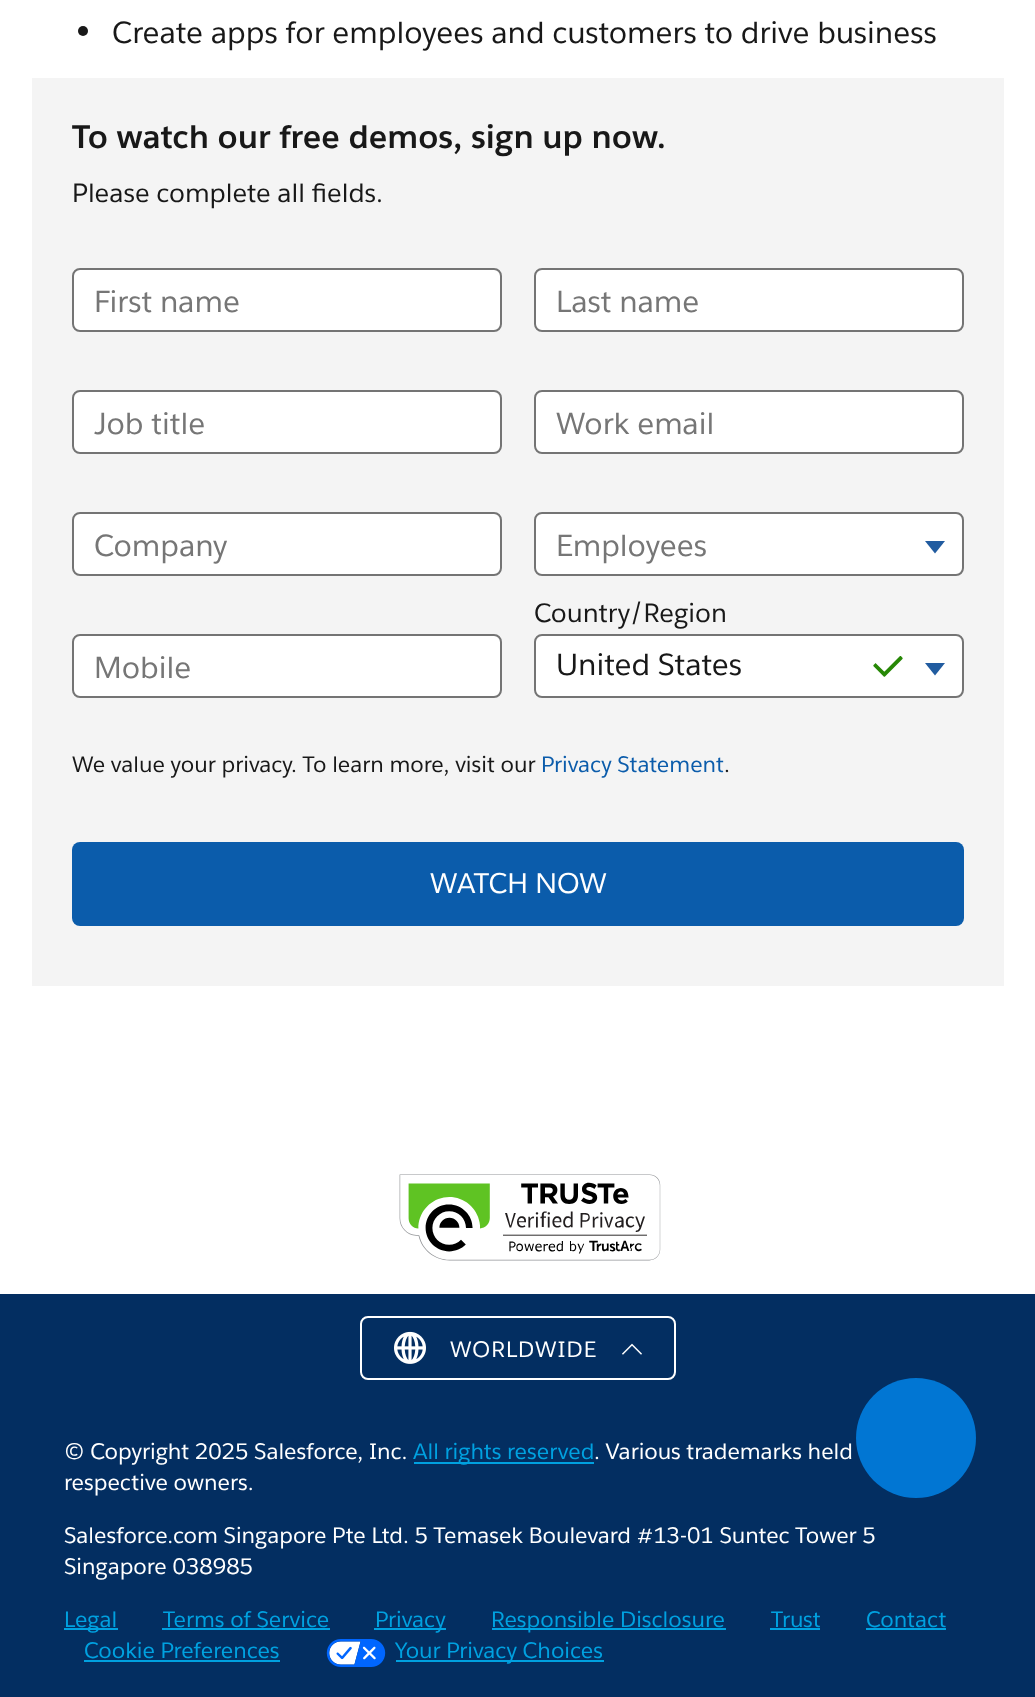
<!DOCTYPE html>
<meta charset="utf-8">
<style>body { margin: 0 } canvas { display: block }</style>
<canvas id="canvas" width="1035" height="1697"></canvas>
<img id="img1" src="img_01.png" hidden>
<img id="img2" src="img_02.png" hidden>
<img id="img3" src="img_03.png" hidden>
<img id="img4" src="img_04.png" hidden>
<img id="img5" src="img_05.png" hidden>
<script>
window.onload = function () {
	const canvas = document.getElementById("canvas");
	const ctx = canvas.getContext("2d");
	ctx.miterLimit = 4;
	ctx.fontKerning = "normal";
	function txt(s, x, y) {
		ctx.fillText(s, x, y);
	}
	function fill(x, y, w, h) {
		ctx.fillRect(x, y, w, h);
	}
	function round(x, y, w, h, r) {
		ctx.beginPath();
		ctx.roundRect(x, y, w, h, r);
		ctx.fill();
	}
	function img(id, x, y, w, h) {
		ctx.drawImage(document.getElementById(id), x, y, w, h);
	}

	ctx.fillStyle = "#FFFFFF";
	fill(0, 0, 1035, 1697);
	ctx.fillStyle = "#181818";
	ctx.beginPath();
	ctx.arc(83, 31, 5, 0, Math.PI * 2);
	ctx.fill();
	ctx.fillStyle = "#F4F4F4";
	fill(32, 78, 972, 908);
	ctx.fillStyle = "#FFFFFF";
	ctx.beginPath();
	ctx.roundRect(73, 269, 428, 62, 7);
	ctx.fill();
	ctx.strokeStyle = "#747474";
	ctx.lineWidth = 2;
	ctx.stroke();
	ctx.beginPath();
	ctx.roundRect(535, 269, 428, 62, 7);
	ctx.fill();
	ctx.stroke();
	ctx.beginPath();
	ctx.roundRect(73, 391, 428, 62, 7);
	ctx.fill();
	ctx.stroke();
	ctx.beginPath();
	ctx.roundRect(535, 391, 428, 62, 7);
	ctx.fill();
	ctx.stroke();
	ctx.beginPath();
	ctx.roundRect(73, 513, 428, 62, 7);
	ctx.fill();
	ctx.stroke();
	ctx.beginPath();
	ctx.roundRect(535, 513, 428, 62, 7);
	ctx.fill();
	ctx.stroke();
	ctx.fillStyle = "#215CA0";
	ctx.beginPath();
	ctx.moveTo(925, 541);
	ctx.lineTo(945, 541);
	ctx.lineTo(935, 553.5);
	ctx.closePath();
	ctx.fill();
	ctx.fillStyle = "#FFFFFF";
	ctx.beginPath();
	ctx.roundRect(73, 635, 428, 62, 7);
	ctx.fill();
	ctx.stroke();
	ctx.beginPath();
	ctx.roundRect(535, 635, 428, 62, 7);
	ctx.fill();
	ctx.stroke();
	img("img1", 873, 656, 30, 21);
	ctx.fillStyle = "#215CA0";
	ctx.beginPath();
	ctx.moveTo(925, 663);
	ctx.lineTo(945, 663);
	ctx.lineTo(935, 675.5);
	ctx.closePath();
	ctx.fill();
	ctx.fillStyle = "#0B5CAB";
	round(72, 842, 892, 84, 8);
	img("img2", 399, 1174, 262, 87);
	ctx.fillStyle = "#032E61";
	fill(0, 1294, 1035, 403);
	ctx.beginPath();
	ctx.roundRect(361, 1317, 314, 62, 7);
	ctx.strokeStyle = "#FFFFFF";
	ctx.stroke();
	img("img3", 394, 1331, 32, 33);
	img("img4", 622, 1343, 20, 12);
	ctx.fillStyle = "#00A1E0";
	fill(414, 1462, 180, 2);
	fill(64, 1628, 54, 2);
	fill(162, 1628, 168, 2);
	fill(374, 1628, 72, 2);
	fill(492, 1628, 234, 2);
	fill(770, 1628, 50, 2);
	fill(866, 1628, 80, 2);
	fill(84, 1660, 196, 2);
	img("img5", 326, 1639, 60, 28);
	fill(396, 1660, 208, 2);
	ctx.fillStyle = "#0176D3";
	ctx.beginPath();
	ctx.arc(916, 1438, 60, 0, Math.PI * 2);
	ctx.fill();
	ctx.font = "30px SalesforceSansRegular";
	ctx.fillStyle = "#181818";
	txt("Create apps for employees and customers to drive business", 112, 43);
	ctx.font = "bold 32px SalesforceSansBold";
	txt("To watch our free demos, sign up now.", 72, 148);
	ctx.font = "26px SalesforceSansRegular";
	txt("Please complete all fields.", 72, 202);
	ctx.font = "30px SalesforceSansRegular";
	ctx.fillStyle = "#767676";
	txt("First name", 94, 312);
	txt("Last name", 556, 312);
	txt("Job title", 94, 434);
	txt("Work email", 556, 434);
	txt("Company", 94, 556);
	txt("Employees", 556, 556);
	txt("Mobile", 94, 678);
	ctx.font = "26px SalesforceSansRegular";
	ctx.fillStyle = "#181818";
	txt("Country/Region", 534, 622);
	ctx.font = "30px SalesforceSansRegular";
	txt("United States", 556, 675);
	ctx.font = "22px SalesforceSansRegular";
	txt("We value your privacy. To learn more, visit our", 72, 772);
	ctx.fillStyle = "#0B5CAB";
	txt("Privacy Statement", 541, 772);
	ctx.fillStyle = "#181818";
	txt(".", 724, 772);
	ctx.font = "28px SalesforceSansRegular";
	ctx.fillStyle = "#FFFFFF";
	txt("WATCH NOW", 430, 893);
	ctx.letterSpacing = "1px";
	ctx.font = "22px SalesforceSansRegular";
	txt("WORLDWIDE", 450, 1357);
	ctx.letterSpacing = "0px";
	txt("© Copyright 2025 Salesforce, Inc.", 64, 1459);
	ctx.fillStyle = "#00A1E0";
	txt("All rights reserved", 413, 1459);
	ctx.fillStyle = "#FFFFFF";
	txt(". Various trademarks held", 594, 1459);
	txt("respective owners.", 64, 1490);
	txt("Salesforce.com Singapore Pte Ltd. 5 Temasek Boulevard #13-01 Suntec Tower 5", 64, 1543);
	txt("Singapore 038985", 64, 1574);
	ctx.fillStyle = "#00A1E0";
	txt("Legal", 64, 1627);
	txt("Terms of Service", 163, 1627);
	txt("Privacy", 375, 1627);
	txt("Responsible Disclosure", 491, 1627);
	txt("Trust", 771, 1627);
	txt("Contact", 866, 1627);
	txt("Cookie Preferences", 84, 1658);
	txt("Your Privacy Choices", 395, 1658);
};
</script>
